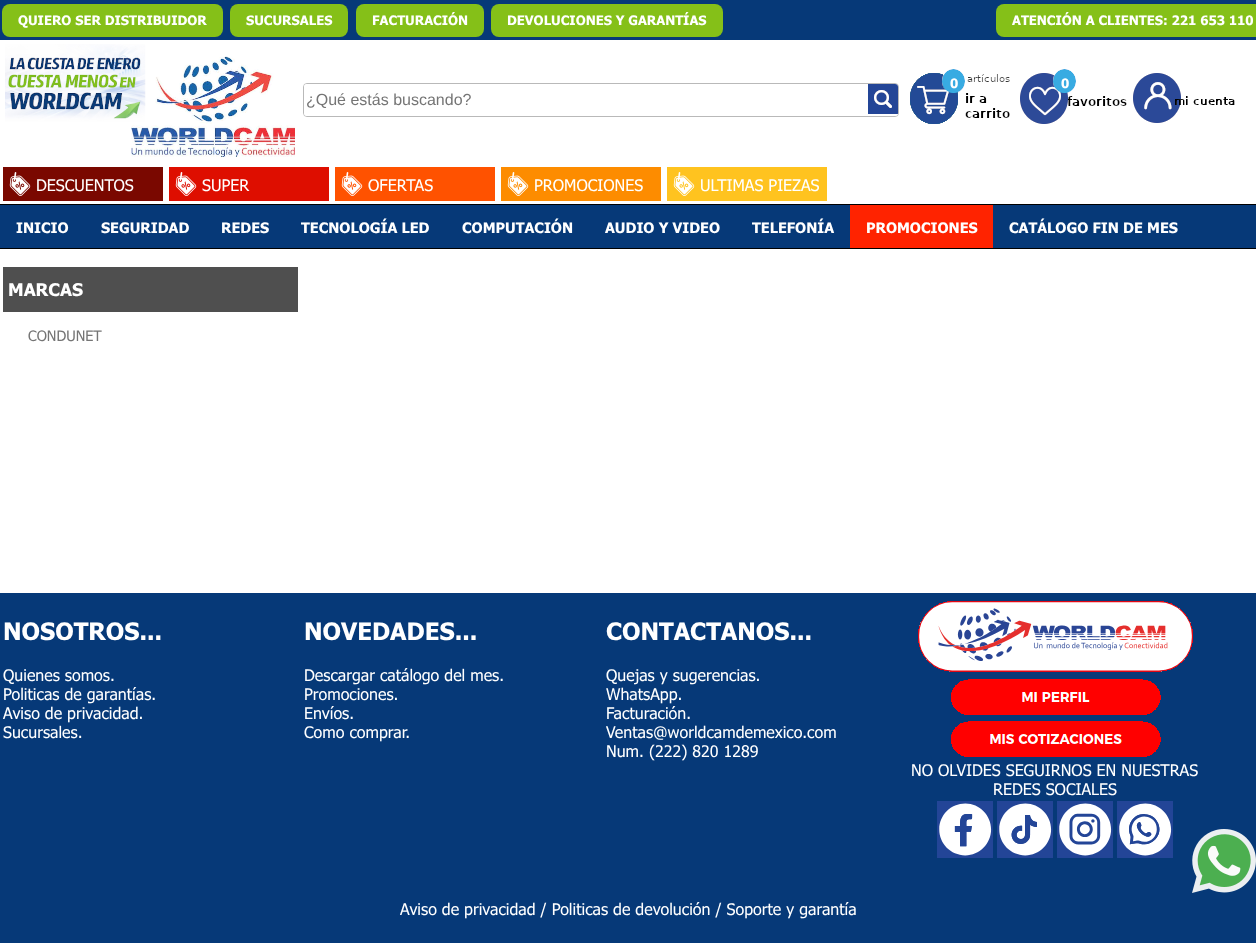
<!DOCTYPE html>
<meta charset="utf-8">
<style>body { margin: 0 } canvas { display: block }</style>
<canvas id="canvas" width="1256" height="943"></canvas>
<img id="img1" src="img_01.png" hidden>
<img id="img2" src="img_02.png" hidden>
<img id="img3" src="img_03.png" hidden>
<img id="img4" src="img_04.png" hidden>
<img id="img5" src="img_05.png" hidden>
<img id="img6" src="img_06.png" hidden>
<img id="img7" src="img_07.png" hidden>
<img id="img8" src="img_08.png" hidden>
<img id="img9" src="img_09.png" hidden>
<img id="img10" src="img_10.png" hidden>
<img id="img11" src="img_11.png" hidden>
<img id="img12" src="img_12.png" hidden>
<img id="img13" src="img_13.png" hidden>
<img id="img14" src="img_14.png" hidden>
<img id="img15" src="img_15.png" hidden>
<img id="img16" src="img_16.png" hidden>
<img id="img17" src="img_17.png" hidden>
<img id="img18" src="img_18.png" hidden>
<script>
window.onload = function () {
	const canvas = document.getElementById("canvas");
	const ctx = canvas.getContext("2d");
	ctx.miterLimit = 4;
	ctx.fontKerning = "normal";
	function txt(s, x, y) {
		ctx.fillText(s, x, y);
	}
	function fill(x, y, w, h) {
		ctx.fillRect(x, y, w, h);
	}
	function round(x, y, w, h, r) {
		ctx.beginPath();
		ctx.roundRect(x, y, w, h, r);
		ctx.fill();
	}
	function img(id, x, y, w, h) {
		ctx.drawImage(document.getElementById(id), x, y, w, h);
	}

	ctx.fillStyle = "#FFFFFF";
	fill(0, 0, 1256, 943);
	ctx.fillStyle = "#063978";
	fill(0, 0, 1256, 40);
	ctx.fillStyle = "#85C018";
	round(2, 4, 221, 33, 8);
	round(230, 4, 118, 33, 8);
	round(356, 4, 128, 33, 8);
	round(491, 4, 232, 33, 8);
	ctx.beginPath();
	ctx.roundRect(996, 4, 260, 33, [8, 0, 0, 8]);
	ctx.fill();
	img("img1", 5, 44, 290, 113);
	img("img2", 910, 69, 100, 55);
	img("img3", 1020, 69, 107, 55);
	img("img4", 1133, 73, 102, 50);
	ctx.beginPath();
	ctx.roundRect(303.5, 83.5, 595, 33, 3.5);
	ctx.strokeStyle = "#B9B9B9";
	ctx.stroke();
	ctx.fillStyle = "#FFFFFF";
	ctx.beginPath();
	ctx.roundRect(304, 84, 564, 32, [3, 0, 0, 3]);
	ctx.fill();
	ctx.beginPath();
	ctx.roundRect(868, 84, 30, 32, [0, 3, 3, 0]);
	ctx.fill();
	img("img5", 868, 84, 30, 30);
	ctx.fillStyle = "#7A0800";
	fill(3, 167, 160, 34);
	img("img6", 9, 172, 22, 24);
	ctx.fillStyle = "#DE0E00";
	fill(169, 167, 160, 34);
	img("img7", 175, 172, 22, 24);
	ctx.fillStyle = "#FF5200";
	fill(335, 167, 160, 34);
	img("img8", 341, 172, 22, 24);
	ctx.fillStyle = "#FD8C00";
	fill(501, 167, 160, 34);
	img("img9", 507, 172, 22, 24);
	ctx.fillStyle = "#FFC31F";
	fill(667, 167, 160, 34);
	img("img10", 673, 172, 22, 24);
	ctx.fillStyle = "#063978";
	fill(0, 205, 1256, 43);
	ctx.fillStyle = "#000000";
	fill(0, 204, 1256, 1);
	fill(0, 248, 1256, 1);
	ctx.fillStyle = "#FF2300";
	fill(850, 205, 143, 43);
	ctx.fillStyle = "#4F4F4F";
	fill(3, 267, 295, 45);
	ctx.fillStyle = "#063978";
	fill(0, 593, 1256, 350);
	img("img11", 918, 601, 275, 71);
	img("img12", 951, 679, 210, 36);
	img("img13", 951, 721, 210, 36);
	img("img14", 937, 801, 56, 57);
	img("img15", 997, 801, 56, 57);
	img("img16", 1057, 801, 56, 57);
	img("img17", 1117, 801, 56, 57);
	img("img18", 1192, 829, 64, 64);
	ctx.font = "bold 13px Tahoma";
	ctx.fillStyle = "#FFFFFF";
	txt("QUIERO SER DISTRIBUIDOR", 18, 25);
	txt("SUCURSALES", 246, 25);
	txt("FACTURACIÓN", 372, 25);
	txt("DEVOLUCIONES Y GARANTÍAS", 507, 25);
	txt("ATENCIÓN A CLIENTES: 221 653 110", 1012, 25);
	txt("0", 950, 88);
	txt("0", 1061, 88);
	ctx.font = "16px Liberation Sans";
	ctx.fillStyle = "#757575";
	txt("¿Qué estás buscando?", 306, 105);
	ctx.font = "16px Tahoma";
	ctx.fillStyle = "#FFFFFF";
	txt("DESCUENTOS", 36, 191);
	txt("SUPER", 202, 191);
	txt("OFERTAS", 368, 191);
	txt("PROMOCIONES", 534, 191);
	txt("ULTIMAS PIEZAS", 700, 191);
	ctx.font = "bold 14.4px Tahoma";
	txt("INICIO", 16, 233);
	txt("SEGURIDAD", 101, 233);
	txt("REDES", 221, 233);
	txt("TECNOLOGÍA LED", 301, 233);
	txt("COMPUTACIÓN", 462, 233);
	txt("AUDIO Y VIDEO", 605, 233);
	txt("TELEFONÍA", 752, 233);
	txt("PROMOCIONES", 866, 233);
	txt("CATÁLOGO FIN DE MES", 1009, 233);
	ctx.font = "bold 17.5px Tahoma";
	txt("MARCAS", 8, 296);
	ctx.font = "14.4px Tahoma";
	ctx.fillStyle = "#757575";
	txt("CONDUNET", 28, 341);
	ctx.font = "bold 24px Tahoma";
	ctx.fillStyle = "#FFFFFF";
	txt("NOSOTROS...", 3, 640);
	ctx.font = "16px Tahoma";
	txt("Quienes somos.", 3, 681);
	txt("Politicas de garantías.", 3, 700);
	txt("Aviso de privacidad.", 3, 719);
	txt("Sucursales.", 3, 738);
	ctx.font = "bold 24px Tahoma";
	txt("NOVEDADES...", 304, 640);
	ctx.font = "16px Tahoma";
	txt("Descargar catálogo del mes.", 304, 681);
	txt("Promociones.", 304, 700);
	txt("Envíos.", 304, 719);
	txt("Como comprar.", 304, 738);
	ctx.font = "bold 24px Tahoma";
	txt("CONTACTANOS...", 606, 640);
	ctx.font = "16px Tahoma";
	txt("Quejas y sugerencias.", 606, 681);
	txt("WhatsApp.", 606, 700);
	txt("Facturación.", 606, 719);
	txt("Ventas@worldcamdemexico.com", 606, 738);
	txt("Num. (222) 820 1289", 606, 757);
	txt("NO OLVIDES SEGUIRNOS EN NUESTRAS", 911, 776);
	txt("REDES SOCIALES", 993, 795);
	txt("Aviso de privacidad / Politicas de devolución / Soporte y garantía", 400, 915);
};
</script>
